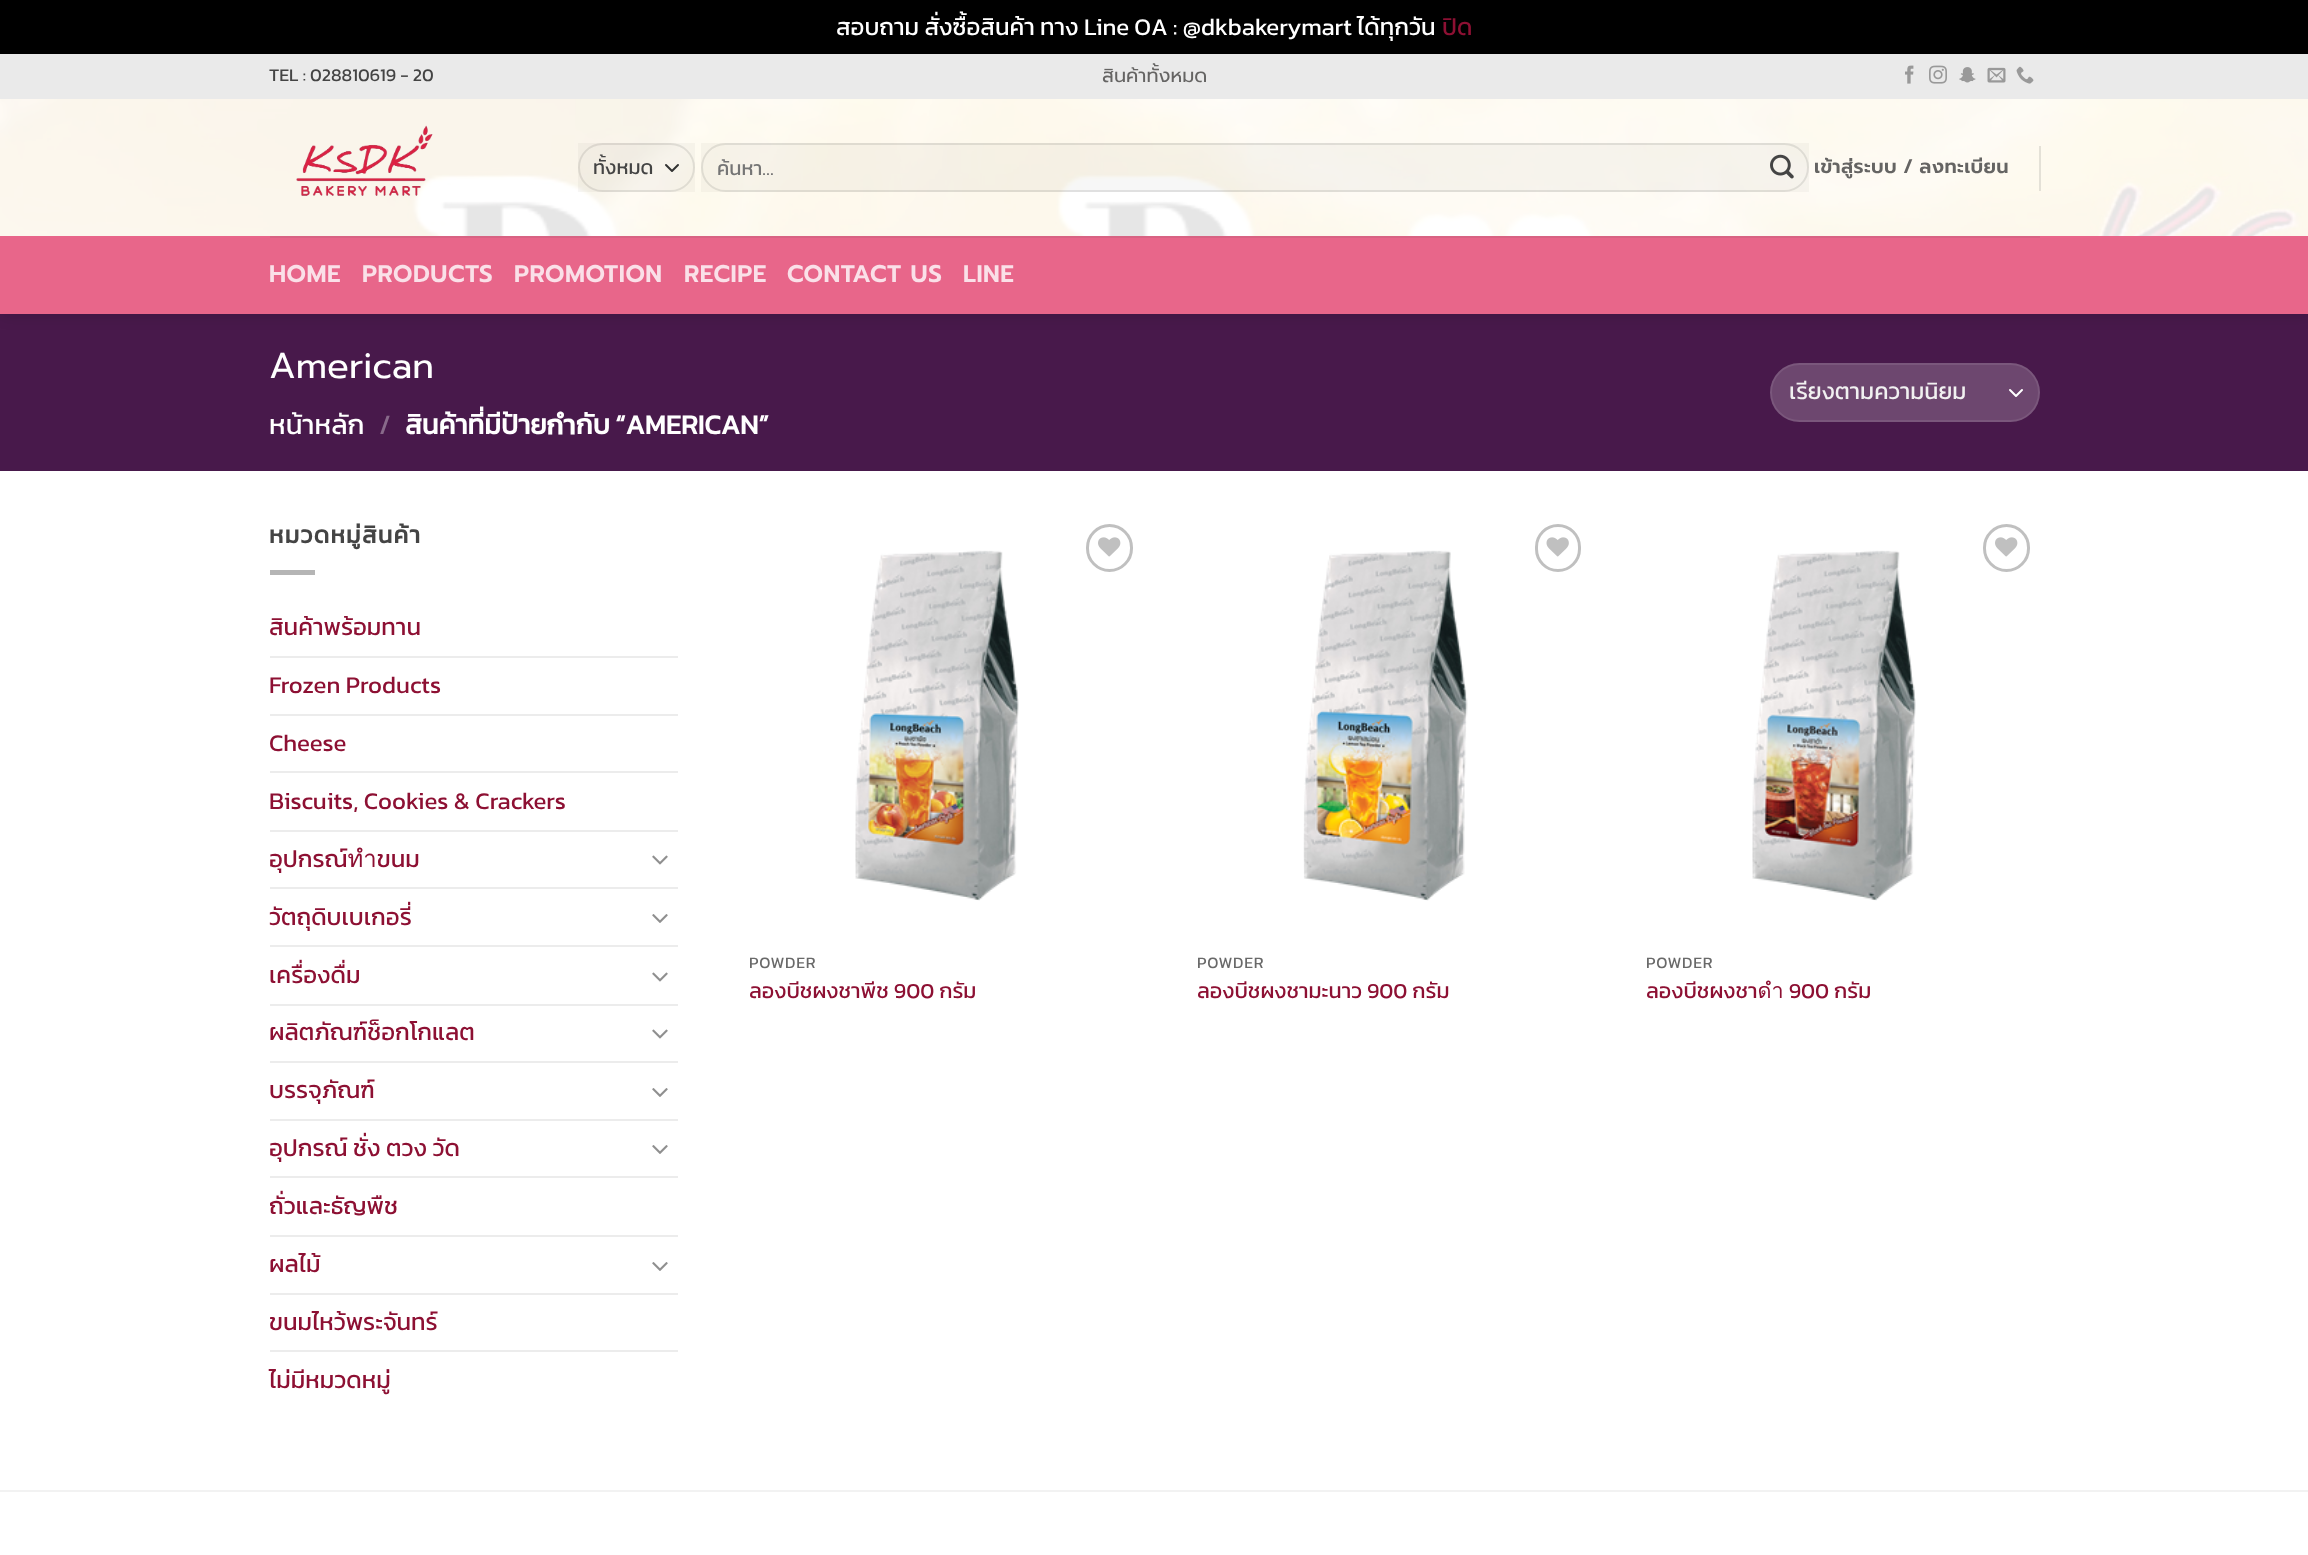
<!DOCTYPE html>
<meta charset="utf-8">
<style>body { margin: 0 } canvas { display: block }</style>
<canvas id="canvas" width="2308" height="1555"></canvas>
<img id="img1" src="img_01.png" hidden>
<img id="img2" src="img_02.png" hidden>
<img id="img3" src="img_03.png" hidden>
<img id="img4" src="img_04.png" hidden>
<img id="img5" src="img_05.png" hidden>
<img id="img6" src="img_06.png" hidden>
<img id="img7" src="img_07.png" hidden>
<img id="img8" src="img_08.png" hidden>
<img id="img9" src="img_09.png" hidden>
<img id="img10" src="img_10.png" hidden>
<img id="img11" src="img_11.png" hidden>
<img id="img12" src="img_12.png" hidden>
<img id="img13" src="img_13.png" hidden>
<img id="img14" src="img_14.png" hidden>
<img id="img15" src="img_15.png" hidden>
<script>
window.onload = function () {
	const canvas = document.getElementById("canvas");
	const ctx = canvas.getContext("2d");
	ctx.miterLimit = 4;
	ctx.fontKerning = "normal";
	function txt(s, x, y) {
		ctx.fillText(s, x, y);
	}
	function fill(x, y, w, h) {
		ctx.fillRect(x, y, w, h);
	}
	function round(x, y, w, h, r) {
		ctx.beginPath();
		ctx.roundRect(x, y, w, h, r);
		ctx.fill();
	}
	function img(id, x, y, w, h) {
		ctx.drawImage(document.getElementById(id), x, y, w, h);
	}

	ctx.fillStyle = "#FFFFFF";
	fill(0, 0, 2308, 1555);
	ctx.fillStyle = "#000000";
	fill(0, 0, 2308, 54);
	ctx.fillStyle = "#48194B";
	fill(0, 314, 2308, 157);
	ctx.fillStyle = "rgba(0, 0, 0, 0.15)";
	ctx.filter = "blur(7.5px)";
	ctx.beginPath();
	ctx.rect(2, 56, 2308, 259);
	ctx.fill();
	ctx.filter = "none";
	ctx.fillStyle = "#EAEAEA";
	fill(0, 54, 2308, 45);
	img("img1", 1905, 65, 9, 19);
	img("img2", 1929, 65, 18, 19);
	img("img3", 1959, 67, 17, 16);
	img("img4", 1987, 67, 19, 16);
	img("img5", 2016, 66, 18, 18);
	img("img6", 0, 99, 2308, 137);
	ctx.fillStyle = "rgba(255, 255, 255, 0.9)";
	fill(0, 99, 2308, 137);
	img("img7", 296, 125, 137, 71);
	ctx.fillStyle = "rgba(0, 0, 0, 0.03)";
	fill(578, 143, 117, 49);
	ctx.beginPath();
	ctx.moveTo(666, 165);
	ctx.lineTo(672, 171);
	ctx.lineTo(678, 165);
	ctx.strokeStyle = "#333333";
	ctx.lineWidth = 2;
	ctx.lineCap = "round";
	ctx.lineJoin = "round";
	ctx.stroke();
	ctx.beginPath();
	ctx.roundRect(579, 144, 115, 47, 23.5);
	ctx.strokeStyle = "rgba(0, 0, 0, 0.09)";
	ctx.lineJoin = "miter";
	ctx.stroke();
	fill(701, 143, 1108, 49);
	ctx.beginPath();
	ctx.roundRect(702, 144, 1106, 47, 23.5);
	ctx.stroke();
	img("img8", 1770, 154, 24, 25);
	ctx.fillStyle = "#E4E1D7";
	fill(2039, 146, 2, 45);
	ctx.fillStyle = "#E8668A";
	fill(0, 236, 2308, 78);
	ctx.fillStyle = "#D86383";
	fill(270, 236, 1770, 2);
	ctx.fillStyle = "#6D476F";
	round(1770, 363, 270, 59, 29.5);
	ctx.beginPath();
	ctx.moveTo(2010, 390);
	ctx.lineTo(2016, 396);
	ctx.lineTo(2022, 390);
	ctx.strokeStyle = "#FFFFFF";
	ctx.lineJoin = "round";
	ctx.stroke();
	ctx.beginPath();
	ctx.roundRect(1771, 364, 268, 57, 28.5);
	ctx.strokeStyle = "rgba(255, 255, 255, 0.09)";
	ctx.lineJoin = "miter";
	ctx.stroke();
	ctx.fillStyle = "#B5B5B5";
	fill(270, 570, 45, 5);
	ctx.fillStyle = "#ECECEC";
	fill(270, 656, 408, 2);
	fill(270, 714, 408, 2);
	fill(270, 771, 408, 2);
	fill(270, 830, 408, 2);
	img("img9", 652, 855, 16, 10);
	fill(270, 887, 408, 2);
	img("img10", 652, 914, 16, 9);
	fill(270, 945, 408, 2);
	img("img9", 652, 972, 16, 10);
	fill(270, 1004, 408, 2);
	img("img9", 652, 1029, 16, 10);
	fill(270, 1061, 408, 2);
	img("img10", 652, 1088, 16, 9);
	fill(270, 1119, 408, 2);
	img("img10", 652, 1145, 16, 9);
	fill(270, 1176, 408, 2);
	fill(270, 1235, 408, 2);
	img("img10", 652, 1262, 16, 9);
	fill(270, 1293, 408, 2);
	fill(270, 1350, 408, 2);
	img("img11", 855, 550, 164, 351);
	ctx.beginPath();
	ctx.roundRect(1087.5, 525.5, 44, 45, 22);
	ctx.strokeStyle = "#C0C0C0";
	ctx.lineWidth = 3;
	ctx.stroke();
	img("img12", 1098, 537, 23, 20);
	img("img13", 1303, 550, 165, 351);
	ctx.beginPath();
	ctx.roundRect(1536.5, 525.5, 43, 45, 21.5);
	ctx.stroke();
	img("img14", 1546, 537, 23, 20);
	img("img15", 1752, 550, 164, 351);
	ctx.beginPath();
	ctx.roundRect(1984.5, 525.5, 44, 45, 22);
	ctx.stroke();
	img("img12", 1995, 537, 23, 20);
	ctx.fillStyle = "#F2F2F2";
	fill(0, 1490, 2308, 2);
	ctx.wordSpacing = "-0.25px";
	ctx.font = "24px Kanit";
	ctx.fillStyle = "#FFFFFF";
	txt("สอบถาม สั่งซื้อสินค้า ทาง Line OA : @dkbakerymart ได้ทุกวัน", 836, 35);
	ctx.wordSpacing = "0px";
	ctx.fillStyle = "#8D1033";
	txt("ปิด", 1442, 35);
	ctx.font = "18px Kanit";
	ctx.fillStyle = "#444444";
	txt("TEL : 028810619 - 20", 269, 81);
	ctx.font = "19.25px Prompt";
	ctx.fillStyle = "#656463";
	txt("สินค้าทั้งหมด", 1102, 82);
	ctx.save();
	ctx.beginPath();
	ctx.rect(593, 152, 72, 31);
	ctx.clip();
	ctx.font = "20px Kanit";
	ctx.fillStyle = "#444444";
	txt("ทั้งหมด", 593, 174);
	ctx.restore();
	ctx.save();
	ctx.beginPath();
	ctx.rect(717, 153, 1071, 30);
	ctx.clip();
	ctx.font = "20px Kanit";
	ctx.fillStyle = "#757575";
	txt("ค้นหา…", 717, 175);
	ctx.restore();
	ctx.letterSpacing = "0.4px";
	ctx.wordSpacing = "-1px";
	ctx.font = "600 19.25px Prompt";
	txt("เข้าสู่ระบบ / ลงทะเบียน", 1814, 173);
	ctx.letterSpacing = "0.5px";
	ctx.wordSpacing = "0px";
	ctx.font = "600 24px Prompt";
	ctx.fillStyle = "#FAE0E8";
	txt("HOME", 269, 282);
	txt("PRODUCTS", 362, 282);
	txt("PROMOTION", 514, 282);
	txt("RECIPE", 684, 282);
	txt("CONTACT US", 787, 282);
	txt("LINE", 963, 282);
	ctx.letterSpacing = "0px";
	ctx.font = "36px Prompt";
	ctx.fillStyle = "#FFFFFF";
	txt("American", 269, 378);
	ctx.font = "27.6px Kanit";
	txt("หน้าหลัก", 269, 434);
	ctx.fillStyle = "#886A8A";
	txt("/", 379, 434);
	ctx.wordSpacing = "-1px";
	ctx.font = "bold 27.6px Kanit";
	ctx.fillStyle = "#FFFFFF";
	txt("สินค้าที่มีป้ายกำกับ “AMERICAN”", 405, 434);
	ctx.save();
	ctx.beginPath();
	ctx.rect(1790, 374, 216, 37);
	ctx.clip();
	ctx.wordSpacing = "0px";
	ctx.font = "23.25px Kanit";
	ctx.fillStyle = "#F1F1F1";
	txt("เรียงตามความนิยม", 1789, 399);
	ctx.restore();
	ctx.letterSpacing = "1.25px";
	ctx.wordSpacing = "0px";
	ctx.font = "bold 24px Kanit";
	ctx.fillStyle = "#444444";
	txt("หมวดหมู่สินค้า", 269, 543);
	ctx.letterSpacing = "0px";
	ctx.font = "24px Kanit";
	ctx.fillStyle = "#8D1033";
	txt("สินค้าพร้อมทาน", 269, 635);
	txt("Frozen Products", 269, 693);
	txt("Cheese", 269, 751);
	txt("Biscuits, Cookies & Crackers", 269, 809);
	txt("อุปกรณ์ทำขนม", 269, 867);
	txt("วัตถุดิบเบเกอรี่", 269, 925);
	txt("เครื่องดื่ม", 269, 983);
	txt("ผลิตภัณฑ์ช็อกโกแลต", 269, 1040);
	txt("บรรจุภัณฑ์", 269, 1098);
	txt("อุปกรณ์ ชั่ง ตวง วัด", 269, 1156);
	txt("ถั่วและธัญพืช", 269, 1214);
	txt("ผลไม้", 269, 1272);
	txt("ขนมไหว้พระจันทร์", 269, 1330);
	txt("ไม่มีหมวดหมู่", 269, 1388);
	ctx.letterSpacing = "0.75px";
	ctx.font = "16px Kanit";
	ctx.fillStyle = "#696969";
	txt("POWDER", 749, 968);
	ctx.letterSpacing = "0px";
	ctx.font = "21.6px Kanit";
	ctx.fillStyle = "#8D1033";
	txt("ลองบีชผงชาพีช 900 กรัม", 749, 998);
	ctx.letterSpacing = "0.75px";
	ctx.font = "16px Kanit";
	ctx.fillStyle = "#696969";
	txt("POWDER", 1197, 968);
	ctx.letterSpacing = "0px";
	ctx.font = "21.6px Kanit";
	ctx.fillStyle = "#8D1033";
	txt("ลองบีชผงชามะนาว 900 กรัม", 1197, 998);
	ctx.letterSpacing = "0.75px";
	ctx.font = "16px Kanit";
	ctx.fillStyle = "#696969";
	txt("POWDER", 1646, 968);
	ctx.letterSpacing = "0px";
	ctx.font = "21.6px Kanit";
	ctx.fillStyle = "#8D1033";
	txt("ลองบีชผงชาดำ 900 กรัม", 1646, 998);
};
</script>
